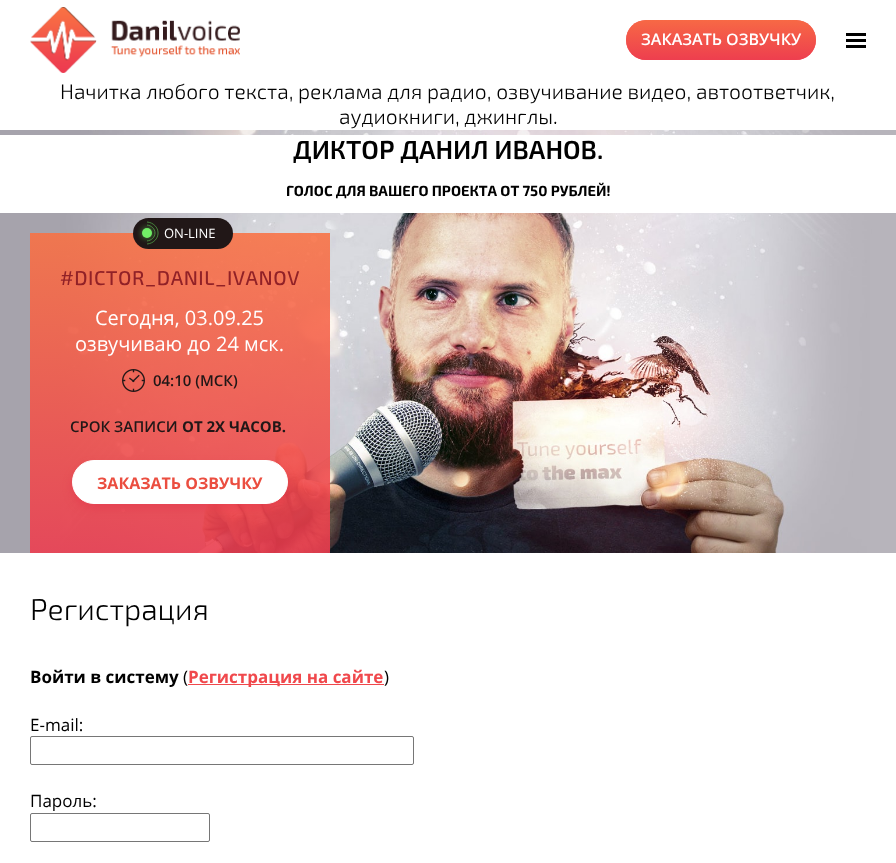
<!DOCTYPE html>
<meta charset="utf-8">
<style>body { margin: 0 } canvas { display: block }</style>
<canvas id="canvas" width="896" height="863"></canvas>
<img id="img1" src="img_01.png" hidden>
<img id="img2" src="img_02.png" hidden>
<img id="img3" src="img_03.png" hidden>
<img id="img4" src="img_04.png" hidden>
<script>
window.onload = function () {
	const canvas = document.getElementById("canvas");
	const ctx = canvas.getContext("2d");
	ctx.miterLimit = 4;
	ctx.fontKerning = "normal";
	function txt(s, x, y) {
		ctx.fillText(s, x, y);
	}
	function fill(x, y, w, h) {
		ctx.fillRect(x, y, w, h);
	}
	function round(x, y, w, h, r) {
		ctx.beginPath();
		ctx.roundRect(x, y, w, h, r);
		ctx.fill();
	}
	function img(id, x, y, w, h) {
		ctx.drawImage(document.getElementById(id), x, y, w, h);
	}
	let gradient;

	ctx.fillStyle = "#FFFFFF";
	fill(0, 0, 896, 863);
	img("img1", 30, 7, 210, 66);
	ctx.fillStyle = "#F0474D";
	round(626, 20, 190, 40, 20);
	gradient = ctx.createLinearGradient(721, 60, 721, 20);
	gradient.addColorStop(0, "rgba(237, 60, 79, 0.8)");
	gradient.addColorStop(1, "rgba(249, 113, 67, 0.8)");
	ctx.fillStyle = gradient;
	round(626, 20, 190, 40, 20);
	ctx.fillStyle = "#000000";
	fill(846, 33, 20, 3);
	fill(846, 39, 20, 3);
	fill(846, 45, 20, 3);
	ctx.fillStyle = "#A6A3AC";
	fill(0, 130, 60, 423);
	img("img2", 60, 130, 836, 423);
	ctx.fillStyle = "#FFFFFF";
	fill(0, 135, 896, 78);
	gradient = ctx.createLinearGradient(180, 553, 180, 233);
	gradient.addColorStop(0, "rgba(237, 60, 79, 0.88)");
	gradient.addColorStop(1, "rgba(249, 113, 67, 0.88)");
	ctx.fillStyle = gradient;
	fill(30, 233, 300, 320);
	ctx.fillStyle = "#211717";
	round(133, 218, 100, 31, 15.5);
	img("img3", 137, 221, 22, 24);
	img("img4", 122, 369, 23, 23);
	ctx.fillStyle = "rgba(227, 53, 73, 0.5)";
	ctx.filter = "blur(4px)";
	ctx.beginPath();
	ctx.roundRect(72, 465, 216, 44, 22);
	ctx.fill();
	ctx.filter = "none";
	ctx.fillStyle = "#FFFFFF";
	ctx.beginPath();
	ctx.roundRect(72.5, 460.5, 215, 43, 21.5);
	ctx.fill();
	ctx.strokeStyle = "#FFFFFF";
	ctx.stroke();
	ctx.fillStyle = "#F0484C";
	fill(188, 684, 196, 1);
	ctx.beginPath();
	ctx.roundRect(30.5, 736.5, 383, 28, 1.5);
	ctx.strokeStyle = "#767676";
	ctx.stroke();
	ctx.beginPath();
	ctx.roundRect(30.5, 813.5, 179, 28, 1.5);
	ctx.stroke();
	ctx.font = "600 16px Open Sans";
	ctx.fillStyle = "#FFFFFF";
	txt("ЗАКАЗАТЬ ОЗВУЧКУ", 641, 45);
	ctx.font = "300 21px 'Exo 2'";
	ctx.fillStyle = "#000000";
	txt("Начитка любого текста, реклама для радио, озвучивание видео, автоответчик,", 60, 99);
	txt("аудиокниги, джинглы.", 339, 124);
	ctx.font = "600 26px 'Exo 2'";
	txt("ДИКТОР ДАНИЛ ИВАНОВ.", 293, 159);
	ctx.font = "bold 14.7px 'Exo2'";
	txt("ГОЛОС ДЛЯ ВАШЕГО ПРОЕКТА ОТ 750 РУБЛЕЙ!", 286, 196);
	ctx.font = "13px Open Sans";
	ctx.fillStyle = "#FFFFFF";
	txt("ON-LINE", 164, 238);
	ctx.letterSpacing = "0.5px";
	ctx.font = "500 20px 'Exo 2'";
	ctx.fillStyle = "#912127";
	txt("#DICTOR_DANIL_IVANOV", 60, 285);
	ctx.letterSpacing = "0px";
	ctx.font = "20px Open Sans";
	ctx.fillStyle = "#FFFFFF";
	txt("Сегодня, 03.09.25", 95, 325);
	txt("озвучиваю до 24 мск.", 75, 351);
	ctx.font = "600 15px Open Sans";
	ctx.fillStyle = "#211717";
	txt("04:10 (МСК)", 153, 386);
	txt("СРОК ЗАПИСИ", 70, 432);
	ctx.font = "bold 15px Open Sans";
	txt("ОТ 2Х ЧАСОВ.", 182, 432);
	ctx.font = "bold 16px Open Sans";
	ctx.fillStyle = "#EB4E40";
	txt("ЗАКАЗАТЬ ОЗВУЧКУ", 97, 489);
	ctx.font = "300 30px 'Exo 2'";
	ctx.fillStyle = "#000000";
	txt("Регистрация", 30, 620);
	ctx.font = "bold 17px Open Sans";
	txt("Войти в систему", 30, 683);
	ctx.font = "17px Open Sans";
	txt("(", 183, 683);
	ctx.font = "bold 17px Open Sans";
	ctx.fillStyle = "#F0484C";
	txt("Регистрация на сайте", 188, 683);
	ctx.font = "17px Open Sans";
	ctx.fillStyle = "#000000";
	txt(")", 384, 683);
	txt("E-mail:", 30, 731);
	txt("Пароль:", 30, 807);
};
</script>
